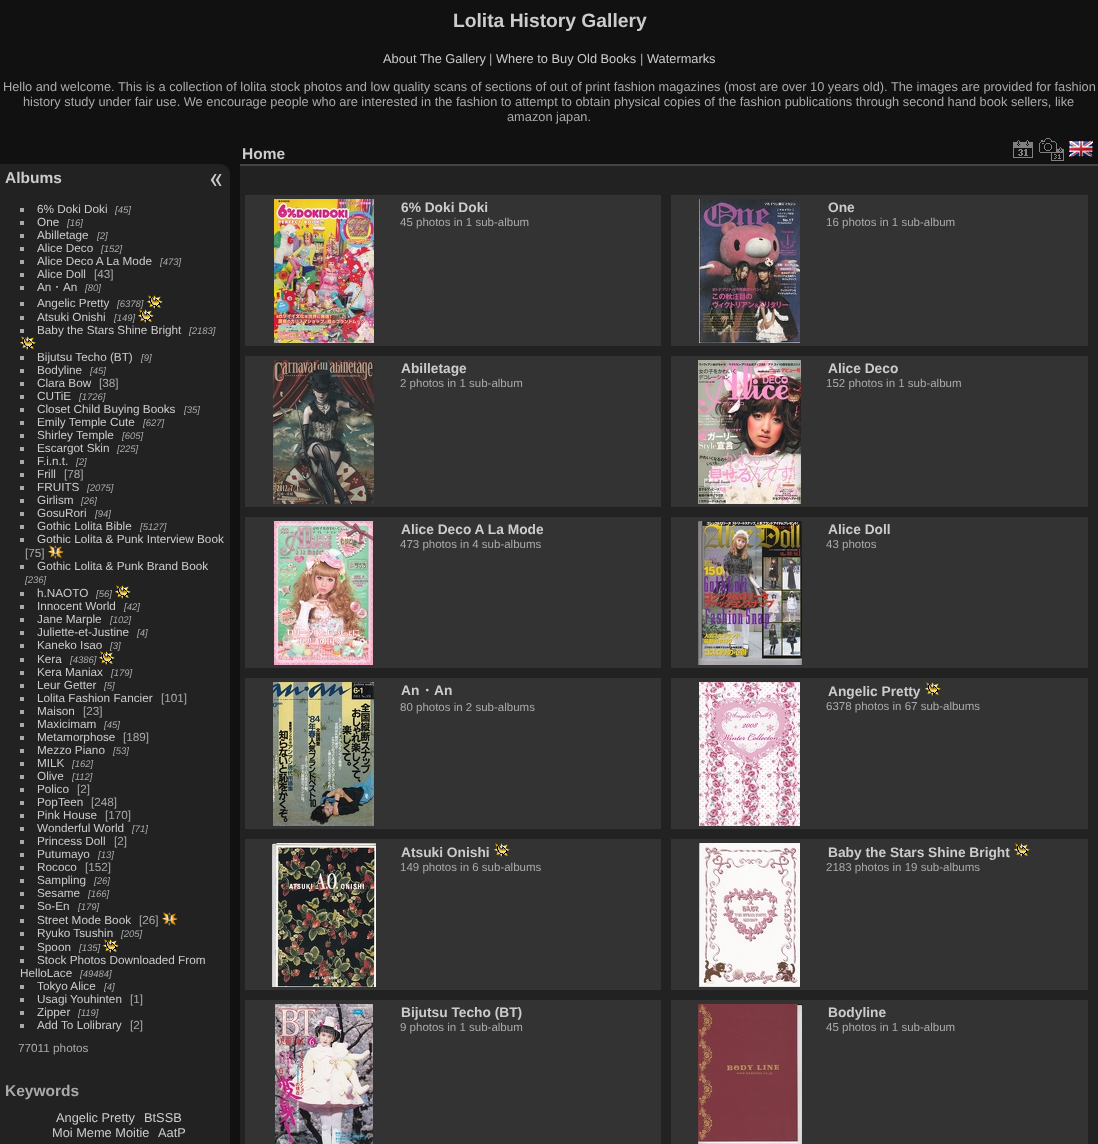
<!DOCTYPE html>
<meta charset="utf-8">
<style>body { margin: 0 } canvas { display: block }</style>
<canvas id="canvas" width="1098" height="1144"></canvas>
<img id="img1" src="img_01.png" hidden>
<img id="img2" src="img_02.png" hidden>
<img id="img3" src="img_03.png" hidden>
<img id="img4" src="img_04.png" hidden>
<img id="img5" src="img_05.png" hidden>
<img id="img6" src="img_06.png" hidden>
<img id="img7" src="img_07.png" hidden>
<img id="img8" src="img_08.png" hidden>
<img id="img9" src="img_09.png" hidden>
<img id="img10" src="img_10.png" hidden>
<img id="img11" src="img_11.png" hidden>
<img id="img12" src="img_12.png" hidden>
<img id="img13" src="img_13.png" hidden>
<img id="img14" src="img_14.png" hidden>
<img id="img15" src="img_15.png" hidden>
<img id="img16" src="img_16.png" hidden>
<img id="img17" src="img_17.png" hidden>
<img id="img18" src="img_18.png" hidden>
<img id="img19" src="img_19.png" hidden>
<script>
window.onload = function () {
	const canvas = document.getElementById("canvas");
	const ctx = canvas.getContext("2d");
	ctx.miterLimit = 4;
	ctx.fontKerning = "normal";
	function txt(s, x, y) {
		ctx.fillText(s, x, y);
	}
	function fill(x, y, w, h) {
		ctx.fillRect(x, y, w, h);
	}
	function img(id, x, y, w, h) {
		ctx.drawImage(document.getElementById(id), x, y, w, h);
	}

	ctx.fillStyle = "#111111";
	fill(0, 0, 1098, 1144);
	ctx.fillStyle = "#222222";
	ctx.beginPath();
	ctx.moveTo(0, 164);
	ctx.lineTo(220, 164);
	ctx.bezierCurveTo(225.5, 164, 230, 168.5, 230, 174);
	ctx.lineTo(230, 1144);
	ctx.bezierCurveTo(230, 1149.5, 225.5, 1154, 220, 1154);
	ctx.lineTo(0, 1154);
	ctx.closePath();
	ctx.fill();
	ctx.fillStyle = "#AAAAAA";
	fill(20, 208, 4, 4);
	fill(20, 221, 4, 4);
	fill(20, 234, 4, 4);
	fill(20, 247, 4, 4);
	fill(20, 260, 4, 4);
	fill(20, 273, 4, 4);
	fill(20, 286, 4, 4);
	fill(20, 302, 4, 4);
	img("img1", 147, 295, 16, 14);
	fill(20, 316, 4, 4);
	img("img1", 138, 309, 16, 14);
	fill(20, 329, 4, 4);
	img("img1", 20, 336, 16, 14);
	fill(20, 356, 4, 4);
	fill(20, 369, 4, 4);
	fill(20, 382, 4, 4);
	fill(20, 395, 4, 4);
	fill(20, 408, 4, 4);
	fill(20, 421, 4, 4);
	fill(20, 434, 4, 4);
	fill(20, 447, 4, 4);
	fill(20, 460, 4, 4);
	fill(20, 473, 4, 4);
	fill(20, 486, 4, 4);
	fill(20, 499, 4, 4);
	fill(20, 512, 4, 4);
	fill(20, 525, 4, 4);
	fill(20, 538, 4, 4);
	img("img2", 48, 545, 16, 14);
	fill(20, 565, 4, 4);
	fill(20, 592, 4, 4);
	img("img1", 115, 585, 16, 14);
	fill(20, 605, 4, 4);
	fill(20, 618, 4, 4);
	fill(20, 631, 4, 4);
	fill(20, 644, 4, 4);
	fill(20, 658, 4, 4);
	img("img1", 99, 651, 16, 14);
	fill(20, 671, 4, 4);
	fill(20, 684, 4, 4);
	fill(20, 697, 4, 4);
	fill(20, 710, 4, 4);
	fill(20, 723, 4, 4);
	fill(20, 736, 4, 4);
	fill(20, 749, 4, 4);
	fill(20, 762, 4, 4);
	fill(20, 775, 4, 4);
	fill(20, 788, 4, 4);
	fill(20, 801, 4, 4);
	fill(20, 814, 4, 4);
	fill(20, 827, 4, 4);
	fill(20, 840, 4, 4);
	fill(20, 853, 4, 4);
	fill(20, 866, 4, 4);
	fill(20, 879, 4, 4);
	fill(20, 892, 4, 4);
	fill(20, 905, 4, 4);
	fill(20, 919, 4, 4);
	img("img2", 162, 912, 16, 14);
	fill(20, 932, 4, 4);
	fill(20, 946, 4, 4);
	fill(20, 959, 4, 4);
	fill(20, 985, 4, 4);
	fill(20, 998, 4, 4);
	fill(20, 1011, 4, 4);
	fill(20, 1024, 4, 4);
	ctx.fillStyle = "#222222";
	fill(240, 166, 858, 978);
	ctx.fillStyle = "#444444";
	fill(240, 164, 858, 2);
	img("img3", 1013, 140, 20, 18);
	img("img4", 1039, 138, 25, 23);
	img("img5", 1069, 141, 24, 16);
	ctx.fillStyle = "#333333";
	fill(245, 195, 416, 151);
	img("img6", 274, 199, 100, 144);
	fill(671, 195, 417, 151);
	img("img7", 699, 199, 101, 144);
	fill(245, 356, 416, 151);
	img("img8", 273, 360, 101, 144);
	fill(671, 356, 417, 151);
	img("img9", 698, 360, 103, 144);
	fill(245, 517, 416, 151);
	img("img10", 274, 521, 99, 144);
	fill(671, 517, 417, 151);
	img("img11", 698, 521, 104, 144);
	fill(245, 678, 416, 151);
	img("img12", 273, 682, 101, 144);
	fill(671, 678, 417, 151);
	img("img13", 699, 682, 101, 144);
	img("img14", 925, 682, 16, 14);
	fill(245, 839, 416, 151);
	img("img15", 272, 843, 104, 144);
	img("img14", 494, 843, 16, 14);
	fill(671, 839, 417, 151);
	img("img16", 699, 843, 101, 144);
	img("img14", 1014, 843, 16, 14);
	fill(245, 1000, 416, 144);
	img("img17", 275, 1004, 98, 140);
	fill(671, 1000, 417, 144);
	img("img18", 698, 1004, 104, 140);
	img("img19", 210, 174, 12, 12);
	ctx.font = "bold 19.25px Liberation Sans";
	ctx.fillStyle = "#CCCCCC";
	txt("Lolita History Gallery", 453, 27);
	ctx.font = "12.8px Liberation Sans";
	txt("About The Gallery", 383, 63);
	ctx.fillStyle = "#AAAAAA";
	txt("|", 489, 63);
	ctx.fillStyle = "#CCCCCC";
	txt("Where to Buy Old Books", 496, 63);
	ctx.fillStyle = "#AAAAAA";
	txt("|", 640, 63);
	ctx.fillStyle = "#CCCCCC";
	txt("Watermarks", 647, 63);
	ctx.fillStyle = "#AAAAAA";
	txt("Hello and welcome. This is a collection of lolita stock photos and low quality scans of sections of out of print fashion magazines (most are over 10 years old). The images are provided for fashion", 3, 91);
	txt("history study under fair use. We encourage people who are interested in the fashion to attempt to obtain physical copies of the fashion publications through second hand book sellers, like", 23, 106);
	txt("amazon japan.", 507, 121);
	ctx.font = "bold 15.5px Liberation Sans";
	ctx.fillStyle = "#CCCCCC";
	txt("Albums", 5, 183);
	ctx.font = "11.75px Liberation Sans";
	txt("6% Doki Doki", 37, 213);
	ctx.font = "italic 9.5px Liberation Sans";
	ctx.fillStyle = "#AAAAAA";
	txt("[45]", 115, 213);
	ctx.font = "11.75px Liberation Sans";
	ctx.fillStyle = "#CCCCCC";
	txt("One", 37, 226);
	ctx.font = "italic 9.5px Liberation Sans";
	ctx.fillStyle = "#AAAAAA";
	txt("[16]", 67, 226);
	ctx.font = "11.75px Liberation Sans";
	ctx.fillStyle = "#CCCCCC";
	txt("Abilletage", 37, 239);
	ctx.font = "italic 9.5px Liberation Sans";
	ctx.fillStyle = "#AAAAAA";
	txt("[2]", 97, 239);
	ctx.font = "11.75px Liberation Sans";
	ctx.fillStyle = "#CCCCCC";
	txt("Alice Deco", 37, 252);
	ctx.font = "italic 9.5px Liberation Sans";
	ctx.fillStyle = "#AAAAAA";
	txt("[152]", 101, 252);
	ctx.font = "11.75px Liberation Sans";
	ctx.fillStyle = "#CCCCCC";
	txt("Alice Deco A La Mode", 37, 265);
	ctx.font = "italic 9.5px Liberation Sans";
	ctx.fillStyle = "#AAAAAA";
	txt("[473]", 160, 265);
	ctx.font = "11.75px Liberation Sans";
	ctx.fillStyle = "#CCCCCC";
	txt("Alice Doll", 37, 278);
	ctx.fillStyle = "#AAAAAA";
	txt("[43]", 94, 278);
	ctx.fillStyle = "#CCCCCC";
	txt("An", 37, 291);
	ctx.font = "500 11.75px WenQuanYi Zen Hei";
	txt("・", 51, 291);
	ctx.font = "11.75px Liberation Sans";
	txt("An", 63, 291);
	ctx.font = "italic 9.5px Liberation Sans";
	ctx.fillStyle = "#AAAAAA";
	txt("[80]", 85, 291);
	ctx.font = "11.75px Liberation Sans";
	ctx.fillStyle = "#CCCCCC";
	txt("Angelic Pretty", 37, 307);
	ctx.font = "italic 9.5px Liberation Sans";
	ctx.fillStyle = "#AAAAAA";
	txt("[6378]", 117, 307);
	ctx.font = "11.75px Liberation Sans";
	ctx.fillStyle = "#CCCCCC";
	txt("Atsuki Onishi", 37, 321);
	ctx.font = "italic 9.5px Liberation Sans";
	ctx.fillStyle = "#AAAAAA";
	txt("[149]", 114, 321);
	ctx.font = "11.75px Liberation Sans";
	ctx.fillStyle = "#CCCCCC";
	txt("Baby the Stars Shine Bright", 37, 334);
	ctx.font = "italic 9.5px Liberation Sans";
	ctx.fillStyle = "#AAAAAA";
	txt("[2183]", 189, 334);
	ctx.font = "11.75px Liberation Sans";
	ctx.fillStyle = "#CCCCCC";
	txt("Bijutsu Techo (BT)", 37, 361);
	ctx.font = "italic 9.5px Liberation Sans";
	ctx.fillStyle = "#AAAAAA";
	txt("[9]", 141, 361);
	ctx.font = "11.75px Liberation Sans";
	ctx.fillStyle = "#CCCCCC";
	txt("Bodyline", 37, 374);
	ctx.font = "italic 9.5px Liberation Sans";
	ctx.fillStyle = "#AAAAAA";
	txt("[45]", 90, 374);
	ctx.font = "11.75px Liberation Sans";
	ctx.fillStyle = "#CCCCCC";
	txt("Clara Bow", 37, 387);
	ctx.fillStyle = "#AAAAAA";
	txt("[38]", 99, 387);
	ctx.fillStyle = "#CCCCCC";
	txt("CUTiE", 37, 400);
	ctx.font = "italic 9.5px Liberation Sans";
	ctx.fillStyle = "#AAAAAA";
	txt("[1726]", 79, 400);
	ctx.font = "11.75px Liberation Sans";
	ctx.fillStyle = "#CCCCCC";
	txt("Closet Child Buying Books", 37, 413);
	ctx.font = "italic 9.5px Liberation Sans";
	ctx.fillStyle = "#AAAAAA";
	txt("[35]", 184, 413);
	ctx.font = "11.75px Liberation Sans";
	ctx.fillStyle = "#CCCCCC";
	txt("Emily Temple Cute", 37, 426);
	ctx.font = "italic 9.5px Liberation Sans";
	ctx.fillStyle = "#AAAAAA";
	txt("[627]", 143, 426);
	ctx.font = "11.75px Liberation Sans";
	ctx.fillStyle = "#CCCCCC";
	txt("Shirley Temple", 37, 439);
	ctx.font = "italic 9.5px Liberation Sans";
	ctx.fillStyle = "#AAAAAA";
	txt("[605]", 122, 439);
	ctx.font = "11.75px Liberation Sans";
	ctx.fillStyle = "#CCCCCC";
	txt("Escargot Skin", 37, 452);
	ctx.font = "italic 9.5px Liberation Sans";
	ctx.fillStyle = "#AAAAAA";
	txt("[225]", 117, 452);
	ctx.font = "11.75px Liberation Sans";
	ctx.fillStyle = "#CCCCCC";
	txt("F.i.n.t.", 37, 465);
	ctx.font = "italic 9.5px Liberation Sans";
	ctx.fillStyle = "#AAAAAA";
	txt("[2]", 76, 465);
	ctx.font = "11.75px Liberation Sans";
	ctx.fillStyle = "#CCCCCC";
	txt("Frill", 37, 478);
	ctx.fillStyle = "#AAAAAA";
	txt("[78]", 64, 478);
	ctx.fillStyle = "#CCCCCC";
	txt("FRUITS", 37, 491);
	ctx.font = "italic 9.5px Liberation Sans";
	ctx.fillStyle = "#AAAAAA";
	txt("[2075]", 87, 491);
	ctx.font = "11.75px Liberation Sans";
	ctx.fillStyle = "#CCCCCC";
	txt("Girlism", 37, 504);
	ctx.font = "italic 9.5px Liberation Sans";
	ctx.fillStyle = "#AAAAAA";
	txt("[26]", 81, 504);
	ctx.font = "11.75px Liberation Sans";
	ctx.fillStyle = "#CCCCCC";
	txt("GosuRori", 37, 517);
	ctx.font = "italic 9.5px Liberation Sans";
	ctx.fillStyle = "#AAAAAA";
	txt("[94]", 95, 517);
	ctx.font = "11.75px Liberation Sans";
	ctx.fillStyle = "#CCCCCC";
	txt("Gothic Lolita Bible", 37, 530);
	ctx.font = "italic 9.5px Liberation Sans";
	ctx.fillStyle = "#AAAAAA";
	txt("[5127]", 140, 530);
	ctx.font = "11.75px Liberation Sans";
	ctx.fillStyle = "#CCCCCC";
	txt("Gothic Lolita & Punk Interview Book", 37, 543);
	ctx.fillStyle = "#AAAAAA";
	txt("[75]", 25, 557);
	ctx.fillStyle = "#CCCCCC";
	txt("Gothic Lolita & Punk Brand Book", 37, 570);
	ctx.font = "italic 9.5px Liberation Sans";
	ctx.fillStyle = "#AAAAAA";
	txt("[236]", 25, 583);
	ctx.font = "11.75px Liberation Sans";
	ctx.fillStyle = "#CCCCCC";
	txt("h.NAOTO", 37, 597);
	ctx.font = "italic 9.5px Liberation Sans";
	ctx.fillStyle = "#AAAAAA";
	txt("[56]", 96, 597);
	ctx.font = "11.75px Liberation Sans";
	ctx.fillStyle = "#CCCCCC";
	txt("Innocent World", 37, 610);
	ctx.font = "italic 9.5px Liberation Sans";
	ctx.fillStyle = "#AAAAAA";
	txt("[42]", 124, 610);
	ctx.font = "11.75px Liberation Sans";
	ctx.fillStyle = "#CCCCCC";
	txt("Jane Marple", 37, 623);
	ctx.font = "italic 9.5px Liberation Sans";
	ctx.fillStyle = "#AAAAAA";
	txt("[102]", 110, 623);
	ctx.font = "11.75px Liberation Sans";
	ctx.fillStyle = "#CCCCCC";
	txt("Juliette-et-Justine", 37, 636);
	ctx.font = "italic 9.5px Liberation Sans";
	ctx.fillStyle = "#AAAAAA";
	txt("[4]", 137, 636);
	ctx.font = "11.75px Liberation Sans";
	ctx.fillStyle = "#CCCCCC";
	txt("Kaneko Isao", 37, 649);
	ctx.font = "italic 9.5px Liberation Sans";
	ctx.fillStyle = "#AAAAAA";
	txt("[3]", 110, 649);
	ctx.font = "11.75px Liberation Sans";
	ctx.fillStyle = "#CCCCCC";
	txt("Kera", 37, 663);
	ctx.font = "italic 9.5px Liberation Sans";
	ctx.fillStyle = "#AAAAAA";
	txt("[4386]", 70, 663);
	ctx.font = "11.75px Liberation Sans";
	ctx.fillStyle = "#CCCCCC";
	txt("Kera Maniax", 37, 676);
	ctx.font = "italic 9.5px Liberation Sans";
	ctx.fillStyle = "#AAAAAA";
	txt("[179]", 111, 676);
	ctx.font = "11.75px Liberation Sans";
	ctx.fillStyle = "#CCCCCC";
	txt("Leur Getter", 37, 689);
	ctx.font = "italic 9.5px Liberation Sans";
	ctx.fillStyle = "#AAAAAA";
	txt("[5]", 104, 689);
	ctx.font = "11.75px Liberation Sans";
	ctx.fillStyle = "#CCCCCC";
	txt("Lolita Fashion Fancier", 37, 702);
	ctx.fillStyle = "#AAAAAA";
	txt("[101]", 161, 702);
	ctx.fillStyle = "#CCCCCC";
	txt("Maison", 37, 715);
	ctx.fillStyle = "#AAAAAA";
	txt("[23]", 83, 715);
	ctx.fillStyle = "#CCCCCC";
	txt("Maxicimam", 37, 728);
	ctx.font = "italic 9.5px Liberation Sans";
	ctx.fillStyle = "#AAAAAA";
	txt("[45]", 104, 728);
	ctx.font = "11.75px Liberation Sans";
	ctx.fillStyle = "#CCCCCC";
	txt("Metamorphose", 37, 741);
	ctx.fillStyle = "#AAAAAA";
	txt("[189]", 123, 741);
	ctx.fillStyle = "#CCCCCC";
	txt("Mezzo Piano", 37, 754);
	ctx.font = "italic 9.5px Liberation Sans";
	ctx.fillStyle = "#AAAAAA";
	txt("[53]", 113, 754);
	ctx.font = "11.75px Liberation Sans";
	ctx.fillStyle = "#CCCCCC";
	txt("MILK", 37, 767);
	ctx.font = "italic 9.5px Liberation Sans";
	ctx.fillStyle = "#AAAAAA";
	txt("[162]", 72, 767);
	ctx.font = "11.75px Liberation Sans";
	ctx.fillStyle = "#CCCCCC";
	txt("Olive", 37, 780);
	ctx.font = "italic 9.5px Liberation Sans";
	ctx.fillStyle = "#AAAAAA";
	txt("[112]", 72, 780);
	ctx.font = "11.75px Liberation Sans";
	ctx.fillStyle = "#CCCCCC";
	txt("Polico", 37, 793);
	ctx.fillStyle = "#AAAAAA";
	txt("[2]", 77, 793);
	ctx.fillStyle = "#CCCCCC";
	txt("PopTeen", 37, 806);
	ctx.fillStyle = "#AAAAAA";
	txt("[248]", 91, 806);
	ctx.fillStyle = "#CCCCCC";
	txt("Pink House", 37, 819);
	ctx.fillStyle = "#AAAAAA";
	txt("[170]", 105, 819);
	ctx.fillStyle = "#CCCCCC";
	txt("Wonderful World", 37, 832);
	ctx.font = "italic 9.5px Liberation Sans";
	ctx.fillStyle = "#AAAAAA";
	txt("[71]", 132, 832);
	ctx.font = "11.75px Liberation Sans";
	ctx.fillStyle = "#CCCCCC";
	txt("Princess Doll", 37, 845);
	ctx.fillStyle = "#AAAAAA";
	txt("[2]", 114, 845);
	ctx.fillStyle = "#CCCCCC";
	txt("Putumayo", 37, 858);
	ctx.font = "italic 9.5px Liberation Sans";
	ctx.fillStyle = "#AAAAAA";
	txt("[13]", 98, 858);
	ctx.font = "11.75px Liberation Sans";
	ctx.fillStyle = "#CCCCCC";
	txt("Rococo", 37, 871);
	ctx.fillStyle = "#AAAAAA";
	txt("[152]", 85, 871);
	ctx.fillStyle = "#CCCCCC";
	txt("Sampling", 37, 884);
	ctx.font = "italic 9.5px Liberation Sans";
	ctx.fillStyle = "#AAAAAA";
	txt("[26]", 94, 884);
	ctx.font = "11.75px Liberation Sans";
	ctx.fillStyle = "#CCCCCC";
	txt("Sesame", 37, 897);
	ctx.font = "italic 9.5px Liberation Sans";
	ctx.fillStyle = "#AAAAAA";
	txt("[166]", 88, 897);
	ctx.font = "11.75px Liberation Sans";
	ctx.fillStyle = "#CCCCCC";
	txt("So-En", 37, 910);
	ctx.font = "italic 9.5px Liberation Sans";
	ctx.fillStyle = "#AAAAAA";
	txt("[179]", 78, 910);
	ctx.font = "11.75px Liberation Sans";
	ctx.fillStyle = "#CCCCCC";
	txt("Street Mode Book", 37, 924);
	ctx.fillStyle = "#AAAAAA";
	txt("[26]", 139, 924);
	ctx.fillStyle = "#CCCCCC";
	txt("Ryuko Tsushin", 37, 937);
	ctx.font = "italic 9.5px Liberation Sans";
	ctx.fillStyle = "#AAAAAA";
	txt("[205]", 121, 937);
	ctx.font = "11.75px Liberation Sans";
	ctx.fillStyle = "#CCCCCC";
	txt("Spoon", 37, 951);
	ctx.font = "italic 9.5px Liberation Sans";
	ctx.fillStyle = "#AAAAAA";
	txt("[135]", 79, 951);
	img("img1", 103, 939, 16, 14);
	ctx.font = "11.75px Liberation Sans";
	ctx.fillStyle = "#CCCCCC";
	txt("Stock Photos Downloaded From", 37, 964);
	txt("HelloLace", 20, 977);
	ctx.font = "italic 9.5px Liberation Sans";
	ctx.fillStyle = "#AAAAAA";
	txt("[49484]", 80, 977);
	ctx.font = "11.75px Liberation Sans";
	ctx.fillStyle = "#CCCCCC";
	txt("Tokyo Alice", 37, 990);
	ctx.font = "italic 9.5px Liberation Sans";
	ctx.fillStyle = "#AAAAAA";
	txt("[4]", 104, 990);
	ctx.font = "11.75px Liberation Sans";
	ctx.fillStyle = "#CCCCCC";
	txt("Usagi Youhinten", 37, 1003);
	ctx.fillStyle = "#AAAAAA";
	txt("[1]", 130, 1003);
	ctx.fillStyle = "#CCCCCC";
	txt("Zipper", 37, 1016);
	ctx.font = "italic 9.5px Liberation Sans";
	ctx.fillStyle = "#AAAAAA";
	txt("[119]", 78, 1016);
	ctx.font = "11.75px Liberation Sans";
	ctx.fillStyle = "#CCCCCC";
	txt("Add To Lolibrary", 37, 1029);
	ctx.fillStyle = "#AAAAAA";
	txt("[2]", 130, 1029);
	txt("77011 photos", 18, 1052);
	ctx.font = "bold 15.5px Liberation Sans";
	txt("Keywords", 5, 1096);
	ctx.font = "12.8px Liberation Sans";
	ctx.fillStyle = "#CCCCCC";
	txt("Angelic Pretty", 56, 1122);
	txt("BtSSB", 144, 1122);
	txt("Moi Meme Moitie", 52, 1137);
	txt("AatP", 158, 1137);
	ctx.font = "bold 15.5px Liberation Sans";
	txt("Home", 242, 159);
	ctx.font = "bold 13.75px Liberation Sans";
	txt("6% Doki Doki", 401, 212);
	ctx.font = "11.5px Liberation Sans";
	ctx.fillStyle = "#AAAAAA";
	txt("45 photos in 1 sub-album", 400, 226);
	ctx.font = "bold 13.75px Liberation Sans";
	ctx.fillStyle = "#CCCCCC";
	txt("One", 828, 212);
	ctx.font = "11.5px Liberation Sans";
	ctx.fillStyle = "#AAAAAA";
	txt("16 photos in 1 sub-album", 826, 226);
	ctx.font = "bold 13.75px Liberation Sans";
	ctx.fillStyle = "#CCCCCC";
	txt("Abilletage", 401, 373);
	ctx.font = "11.5px Liberation Sans";
	ctx.fillStyle = "#AAAAAA";
	txt("2 photos in 1 sub-album", 400, 387);
	ctx.font = "bold 13.75px Liberation Sans";
	ctx.fillStyle = "#CCCCCC";
	txt("Alice Deco", 828, 373);
	ctx.font = "11.5px Liberation Sans";
	ctx.fillStyle = "#AAAAAA";
	txt("152 photos in 1 sub-album", 826, 387);
	ctx.font = "bold 13.75px Liberation Sans";
	ctx.fillStyle = "#CCCCCC";
	txt("Alice Deco A La Mode", 401, 534);
	ctx.font = "11.5px Liberation Sans";
	ctx.fillStyle = "#AAAAAA";
	txt("473 photos in 4 sub-albums", 400, 548);
	ctx.font = "bold 13.75px Liberation Sans";
	ctx.fillStyle = "#CCCCCC";
	txt("Alice Doll", 828, 534);
	ctx.font = "11.5px Liberation Sans";
	ctx.fillStyle = "#AAAAAA";
	txt("43 photos", 826, 548);
	ctx.font = "bold 13.75px Liberation Sans";
	ctx.fillStyle = "#CCCCCC";
	txt("An", 401, 695);
	ctx.font = "bold 13.75px WenQuanYi Zen Hei";
	txt("・", 420, 695);
	ctx.font = "bold 13.75px Liberation Sans";
	txt("An", 434, 695);
	ctx.font = "11.5px Liberation Sans";
	ctx.fillStyle = "#AAAAAA";
	txt("80 photos in 2 sub-albums", 400, 711);
	ctx.font = "bold 13.75px Liberation Sans";
	ctx.fillStyle = "#CCCCCC";
	txt("Angelic Pretty", 828, 696);
	ctx.font = "11.5px Liberation Sans";
	ctx.fillStyle = "#AAAAAA";
	txt("6378 photos in 67 sub-albums", 826, 710);
	ctx.font = "bold 13.75px Liberation Sans";
	ctx.fillStyle = "#CCCCCC";
	txt("Atsuki Onishi", 401, 857);
	ctx.font = "11.5px Liberation Sans";
	ctx.fillStyle = "#AAAAAA";
	txt("149 photos in 6 sub-albums", 400, 871);
	ctx.font = "bold 13.75px Liberation Sans";
	ctx.fillStyle = "#CCCCCC";
	txt("Baby the Stars Shine Bright", 828, 857);
	ctx.font = "11.5px Liberation Sans";
	ctx.fillStyle = "#AAAAAA";
	txt("2183 photos in 19 sub-albums", 826, 871);
	ctx.font = "bold 13.75px Liberation Sans";
	ctx.fillStyle = "#CCCCCC";
	txt("Bijutsu Techo (BT)", 401, 1017);
	ctx.font = "11.5px Liberation Sans";
	ctx.fillStyle = "#AAAAAA";
	txt("9 photos in 1 sub-album", 400, 1031);
	ctx.font = "bold 13.75px Liberation Sans";
	ctx.fillStyle = "#CCCCCC";
	txt("Bodyline", 828, 1017);
	ctx.font = "11.5px Liberation Sans";
	ctx.fillStyle = "#AAAAAA";
	txt("45 photos in 1 sub-album", 826, 1031);
};
</script>
